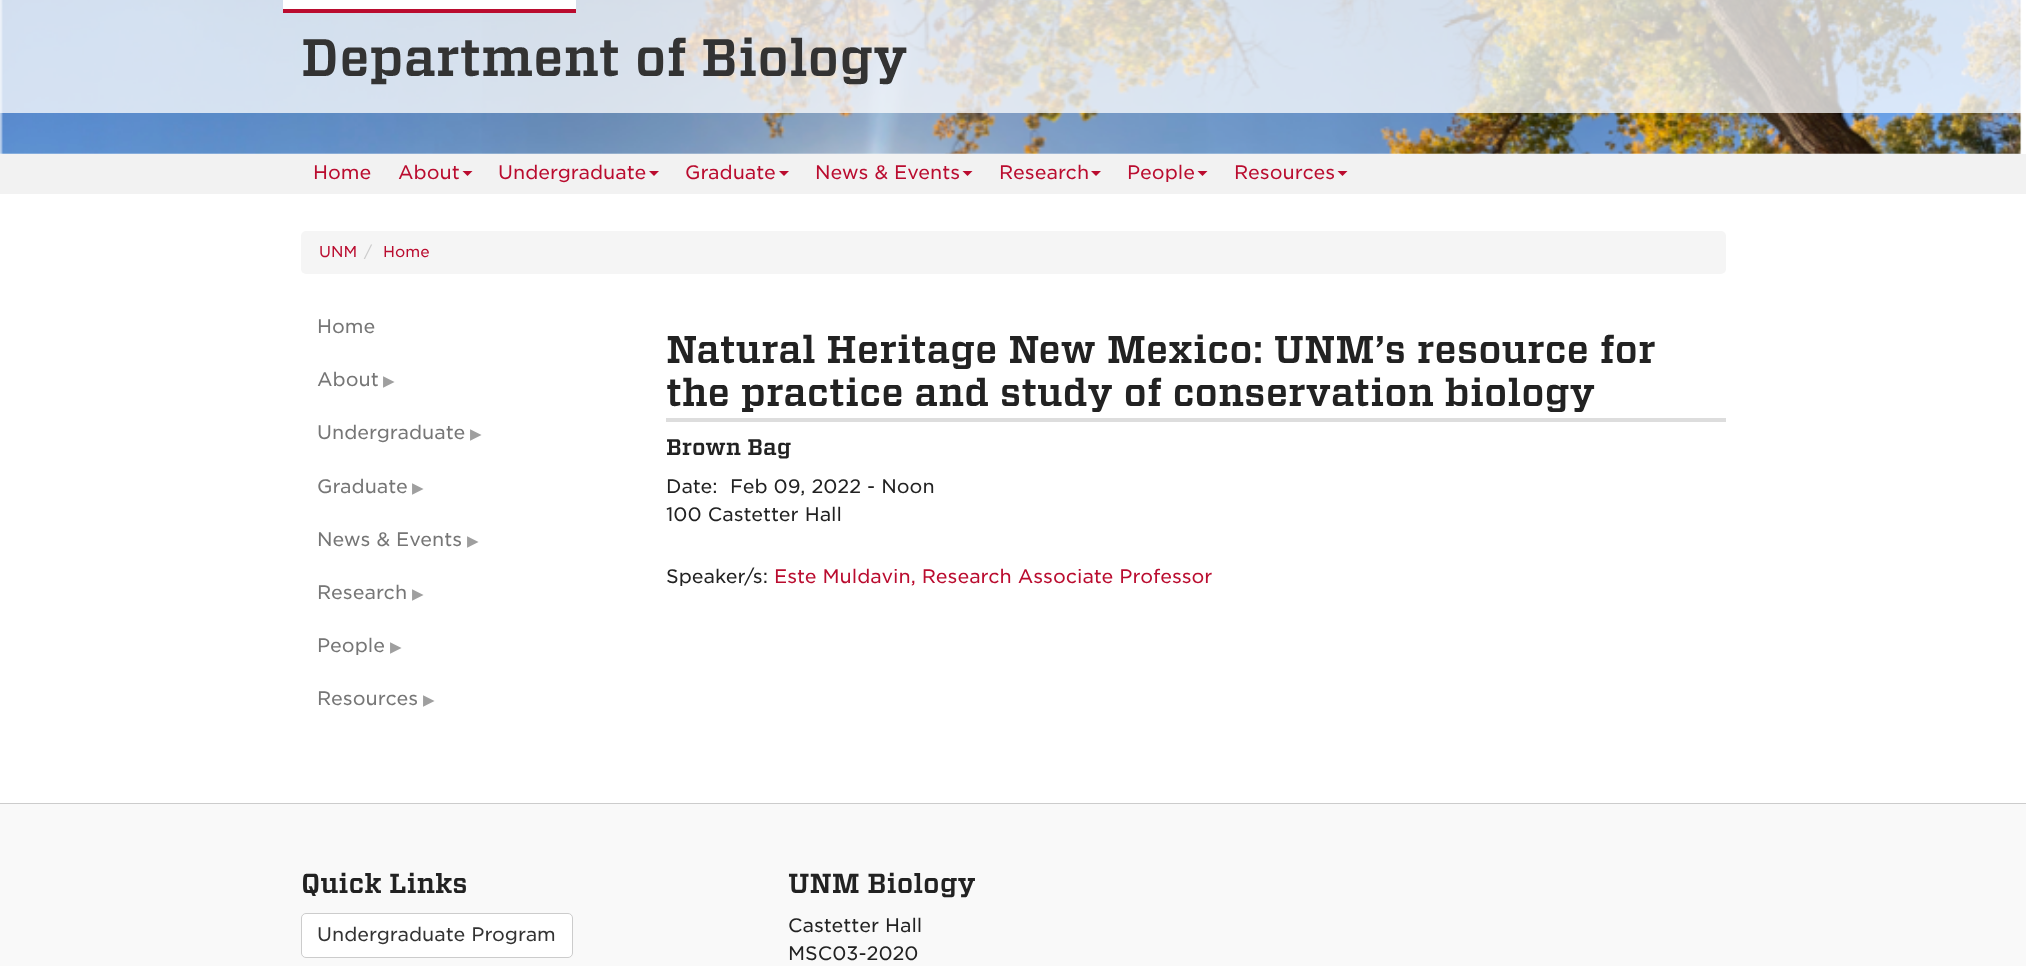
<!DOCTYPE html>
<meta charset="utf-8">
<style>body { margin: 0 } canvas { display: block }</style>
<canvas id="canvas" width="2026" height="966"></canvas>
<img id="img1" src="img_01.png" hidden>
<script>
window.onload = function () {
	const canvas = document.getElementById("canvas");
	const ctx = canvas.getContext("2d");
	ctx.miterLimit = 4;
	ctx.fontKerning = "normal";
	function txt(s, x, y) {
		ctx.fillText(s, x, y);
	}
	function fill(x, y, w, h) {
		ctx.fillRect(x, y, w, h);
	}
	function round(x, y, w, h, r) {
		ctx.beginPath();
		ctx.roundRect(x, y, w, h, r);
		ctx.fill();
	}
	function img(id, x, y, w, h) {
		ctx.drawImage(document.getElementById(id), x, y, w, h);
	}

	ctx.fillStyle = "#FFFFFF";
	fill(0, 0, 2026, 966);
	img("img1", 0, 0, 2022, 154);
	ctx.fillStyle = "rgba(255, 255, 255, 0.75)";
	fill(0, 0, 2022, 113);
	ctx.fillStyle = "#FFFFFF";
	fill(283, 0, 293, 9);
	ctx.fillStyle = "#BA0C2F";
	fill(283, 9, 293, 4);
	ctx.fillStyle = "#F2F2F2";
	fill(0, 154, 2026, 40);
	ctx.fillStyle = "#BA0C2F";
	ctx.beginPath();
	ctx.moveTo(462.5, 171);
	ctx.lineTo(472.5, 171);
	ctx.lineTo(467.5, 176);
	ctx.closePath();
	ctx.fill();
	ctx.beginPath();
	ctx.moveTo(649, 171);
	ctx.lineTo(659, 171);
	ctx.lineTo(654, 176);
	ctx.closePath();
	ctx.fill();
	ctx.beginPath();
	ctx.moveTo(779, 171);
	ctx.lineTo(789, 171);
	ctx.lineTo(784, 176);
	ctx.closePath();
	ctx.fill();
	ctx.beginPath();
	ctx.moveTo(962.5, 171);
	ctx.lineTo(972.5, 171);
	ctx.lineTo(967.5, 176);
	ctx.closePath();
	ctx.fill();
	ctx.beginPath();
	ctx.moveTo(1091, 171);
	ctx.lineTo(1101, 171);
	ctx.lineTo(1096, 176);
	ctx.closePath();
	ctx.fill();
	ctx.beginPath();
	ctx.moveTo(1197.5, 171);
	ctx.lineTo(1207.5, 171);
	ctx.lineTo(1202.5, 176);
	ctx.closePath();
	ctx.fill();
	ctx.beginPath();
	ctx.moveTo(1337.5, 171);
	ctx.lineTo(1347.5, 171);
	ctx.lineTo(1342.5, 176);
	ctx.closePath();
	ctx.fill();
	ctx.fillStyle = "#F5F5F5";
	round(301, 231, 1425, 43, 5);
	ctx.fillStyle = "#DDDDDD";
	fill(666, 418, 1060, 4);
	ctx.fillStyle = "#F9F9F9";
	fill(0, 804, 2026, 162);
	ctx.fillStyle = "#CCCCCC";
	fill(0, 803, 2026, 1);
	ctx.fillStyle = "#FFFFFF";
	ctx.beginPath();
	ctx.roundRect(301.5, 913.5, 271, 44, 4.5);
	ctx.fill();
	ctx.strokeStyle = "#CCCCCC";
	ctx.stroke();
	ctx.font = "bold 52.5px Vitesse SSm";
	ctx.fillStyle = "#333333";
	txt("Department of Biology", 301, 76);
	ctx.font = "18.75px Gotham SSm";
	ctx.fillStyle = "#BA0C2F";
	txt("Home", 313, 179);
	txt("About", 398, 179);
	txt("Undergraduate", 498, 179);
	txt("Graduate", 685, 179);
	txt("News & Events", 815, 179);
	txt("Research", 999, 179);
	txt("People", 1127, 179);
	txt("Resources", 1234, 179);
	ctx.font = "15px Gotham SSm";
	txt("UNM", 319, 257);
	ctx.fillStyle = "#CCCCCC";
	txt("/", 364, 257);
	ctx.fillStyle = "#BA0C2F";
	txt("Home", 383, 257);
	ctx.font = "18.75px Gotham SSm";
	ctx.fillStyle = "#767676";
	txt("Home", 317, 333);
	txt("About", 317, 386);
	ctx.font = "15px DejaVu Sans";
	ctx.fillStyle = "#9F9F9F";
	txt("▶", 383, 386);
	ctx.font = "18.75px Gotham SSm";
	ctx.fillStyle = "#767676";
	txt("Undergraduate", 317, 439);
	ctx.font = "15px DejaVu Sans";
	ctx.fillStyle = "#9F9F9F";
	txt("▶", 470, 439);
	ctx.font = "18.75px Gotham SSm";
	ctx.fillStyle = "#767676";
	txt("Graduate", 317, 493);
	ctx.font = "15px DejaVu Sans";
	ctx.fillStyle = "#9F9F9F";
	txt("▶", 412, 493);
	ctx.font = "18.75px Gotham SSm";
	ctx.fillStyle = "#767676";
	txt("News & Events", 317, 546);
	ctx.font = "15px DejaVu Sans";
	ctx.fillStyle = "#9F9F9F";
	txt("▶", 467, 546);
	ctx.font = "18.75px Gotham SSm";
	ctx.fillStyle = "#767676";
	txt("Research", 317, 599);
	ctx.font = "15px DejaVu Sans";
	ctx.fillStyle = "#9F9F9F";
	txt("▶", 412, 599);
	ctx.font = "18.75px Gotham SSm";
	ctx.fillStyle = "#767676";
	txt("People", 317, 652);
	ctx.font = "15px DejaVu Sans";
	ctx.fillStyle = "#9F9F9F";
	txt("▶", 390, 652);
	ctx.font = "18.75px Gotham SSm";
	ctx.fillStyle = "#767676";
	txt("Resources", 317, 705);
	ctx.font = "15px DejaVu Sans";
	ctx.fillStyle = "#9F9F9F";
	txt("▶", 423, 705);
	ctx.font = "bold 38.75px Vitesse SSm";
	ctx.fillStyle = "#222222";
	txt("Natural Heritage New Mexico: UNM’s resource for", 666, 363);
	txt("the practice and study of conservation biology", 666, 406);
	ctx.font = "bold 22.5px Vitesse SSm";
	txt("Brown Bag", 666, 455);
	ctx.font = "18.75px Gotham SSm";
	txt("Date:", 666, 493);
	txt("Feb 09, 2022 - Noon", 730, 493);
	txt("100 Castetter Hall", 666, 521);
	txt("Speaker/s:", 666, 583);
	ctx.fillStyle = "#BA0C2F";
	txt("Este Muldavin, Research Associate Professor", 774, 583);
	ctx.font = "bold 27.5px Vitesse SSm";
	ctx.fillStyle = "#222222";
	txt("Quick Links", 301, 893);
	ctx.font = "18.75px Gotham SSm";
	ctx.fillStyle = "#333333";
	txt("Undergraduate Program", 317, 941);
	ctx.font = "bold 27.5px Vitesse SSm";
	ctx.fillStyle = "#222222";
	txt("UNM Biology", 788, 893);
	ctx.font = "18.75px Gotham SSm";
	txt("Castetter Hall", 788, 932);
	txt("MSC03-2020", 788, 960);
};
</script>
